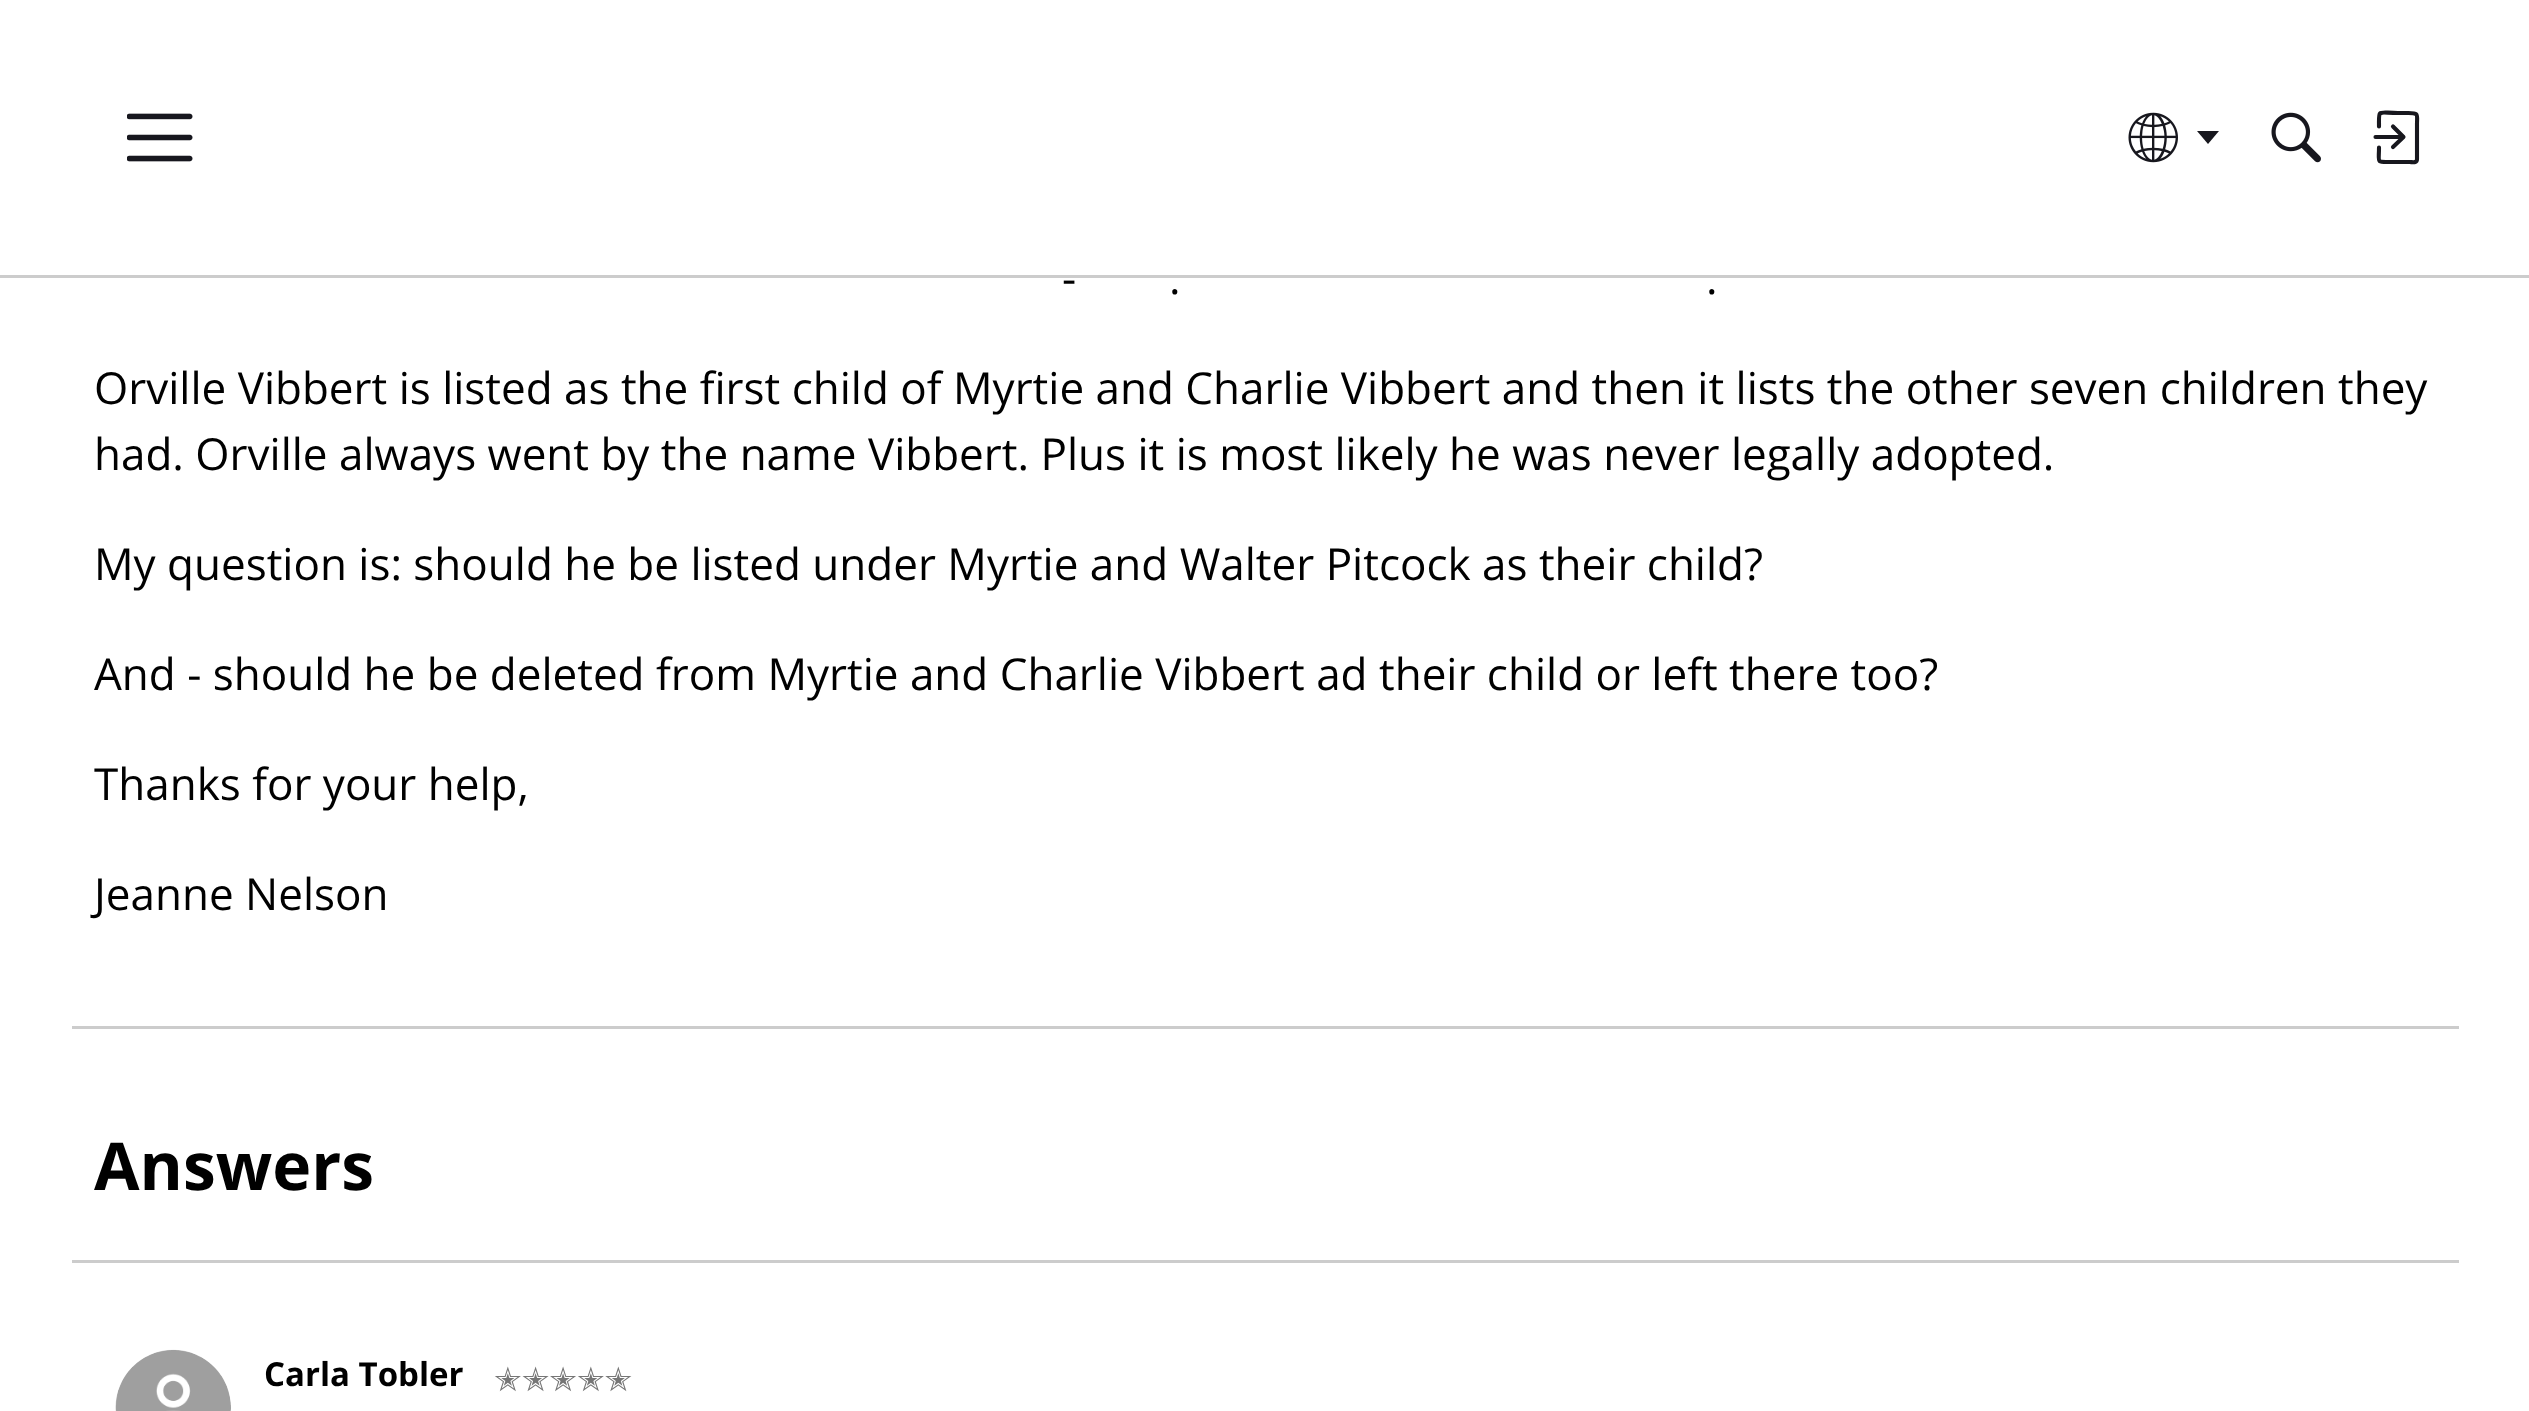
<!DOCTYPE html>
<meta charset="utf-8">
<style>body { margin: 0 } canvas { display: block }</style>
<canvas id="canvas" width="2529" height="1411"></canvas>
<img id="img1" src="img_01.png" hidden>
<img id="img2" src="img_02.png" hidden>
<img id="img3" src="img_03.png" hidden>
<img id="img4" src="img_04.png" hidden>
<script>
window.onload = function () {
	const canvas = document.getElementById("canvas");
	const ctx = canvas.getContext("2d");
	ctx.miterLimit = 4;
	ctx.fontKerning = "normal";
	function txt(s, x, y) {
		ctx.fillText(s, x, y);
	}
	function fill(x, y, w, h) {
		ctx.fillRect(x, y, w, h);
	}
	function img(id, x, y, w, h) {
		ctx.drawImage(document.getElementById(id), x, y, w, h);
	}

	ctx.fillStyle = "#FFFFFF";
	fill(0, 0, 2529, 1411);
	ctx.fillStyle = "#CCCCCC";
	fill(0, 275, 2529, 3);
	img("img1", 127, 113, 66, 49);
	img("img2", 2128, 112, 50, 51);
	ctx.fillStyle = "#17171E";
	ctx.beginPath();
	ctx.moveTo(2197, 131);
	ctx.lineTo(2219, 131);
	ctx.lineTo(2208, 144);
	ctx.closePath();
	ctx.fill();
	img("img3", 2271, 112, 50, 51);
	ctx.beginPath();
	ctx.moveTo(2393, 147);
	ctx.lineTo(2403.5, 137);
	ctx.lineTo(2393, 126.5);
	ctx.strokeStyle = "#17171E";
	ctx.lineWidth = 4.1;
	ctx.lineCap = "round";
	ctx.lineJoin = "round";
	ctx.stroke();
	ctx.beginPath();
	ctx.moveTo(2402.5, 137);
	ctx.lineTo(2375.5, 137);
	ctx.lineJoin = "miter";
	ctx.stroke();
	ctx.beginPath();
	ctx.moveTo(2379, 126.5);
	ctx.bezierCurveTo(2379, 108.5, 2377, 113, 2398, 113);
	ctx.lineTo(2408.5, 113);
	ctx.bezierCurveTo(2419, 113, 2417, 114, 2417, 124.5);
	ctx.lineTo(2417, 159);
	ctx.bezierCurveTo(2417, 163.5, 2412.5, 162, 2409.5, 162);
	ctx.lineTo(2393, 162);
	ctx.bezierCurveTo(2375.5, 162, 2379, 164, 2379, 147.5);
	ctx.lineJoin = "round";
	ctx.stroke();
	ctx.fillStyle = "#CCCCCC";
	fill(72, 1026, 2387, 3);
	fill(72, 1260, 2387, 3);
	img("img4", 115, 1349, 116, 62);
	ctx.font = "44px Open Sans";
	ctx.fillStyle = "#000000";
	txt("-", 1062, 294);
	txt(".", 1169, 294);
	txt(".", 1706, 294);
	txt("Orville Vibbert is listed as the first child of Myrtie and Charlie Vibbert and then it lists the other seven children they", 94, 404);
	txt("had. Orville always went by the name Vibbert. Plus it is most likely he was never legally adopted.", 94, 470);
	txt("My question is: should he be listed under Myrtie and Walter Pitcock as their child?", 94, 580);
	txt("And - should he be deleted from Myrtie and Charlie Vibbert ad their child or left there too?", 94, 690);
	txt("Thanks for your help,", 94, 800);
	txt("Jeanne Nelson", 94, 910);
	ctx.font = "bold 66px Open Sans";
	txt("Answers", 94, 1190);
	ctx.font = "bold 33px Open Sans";
	txt("Carla Tobler", 264, 1386);
	ctx.font = "33px DejaVu Sans";
	ctx.fillStyle = "#767676";
	txt("✭✭✭✭✭", 494, 1391);
};
</script>
